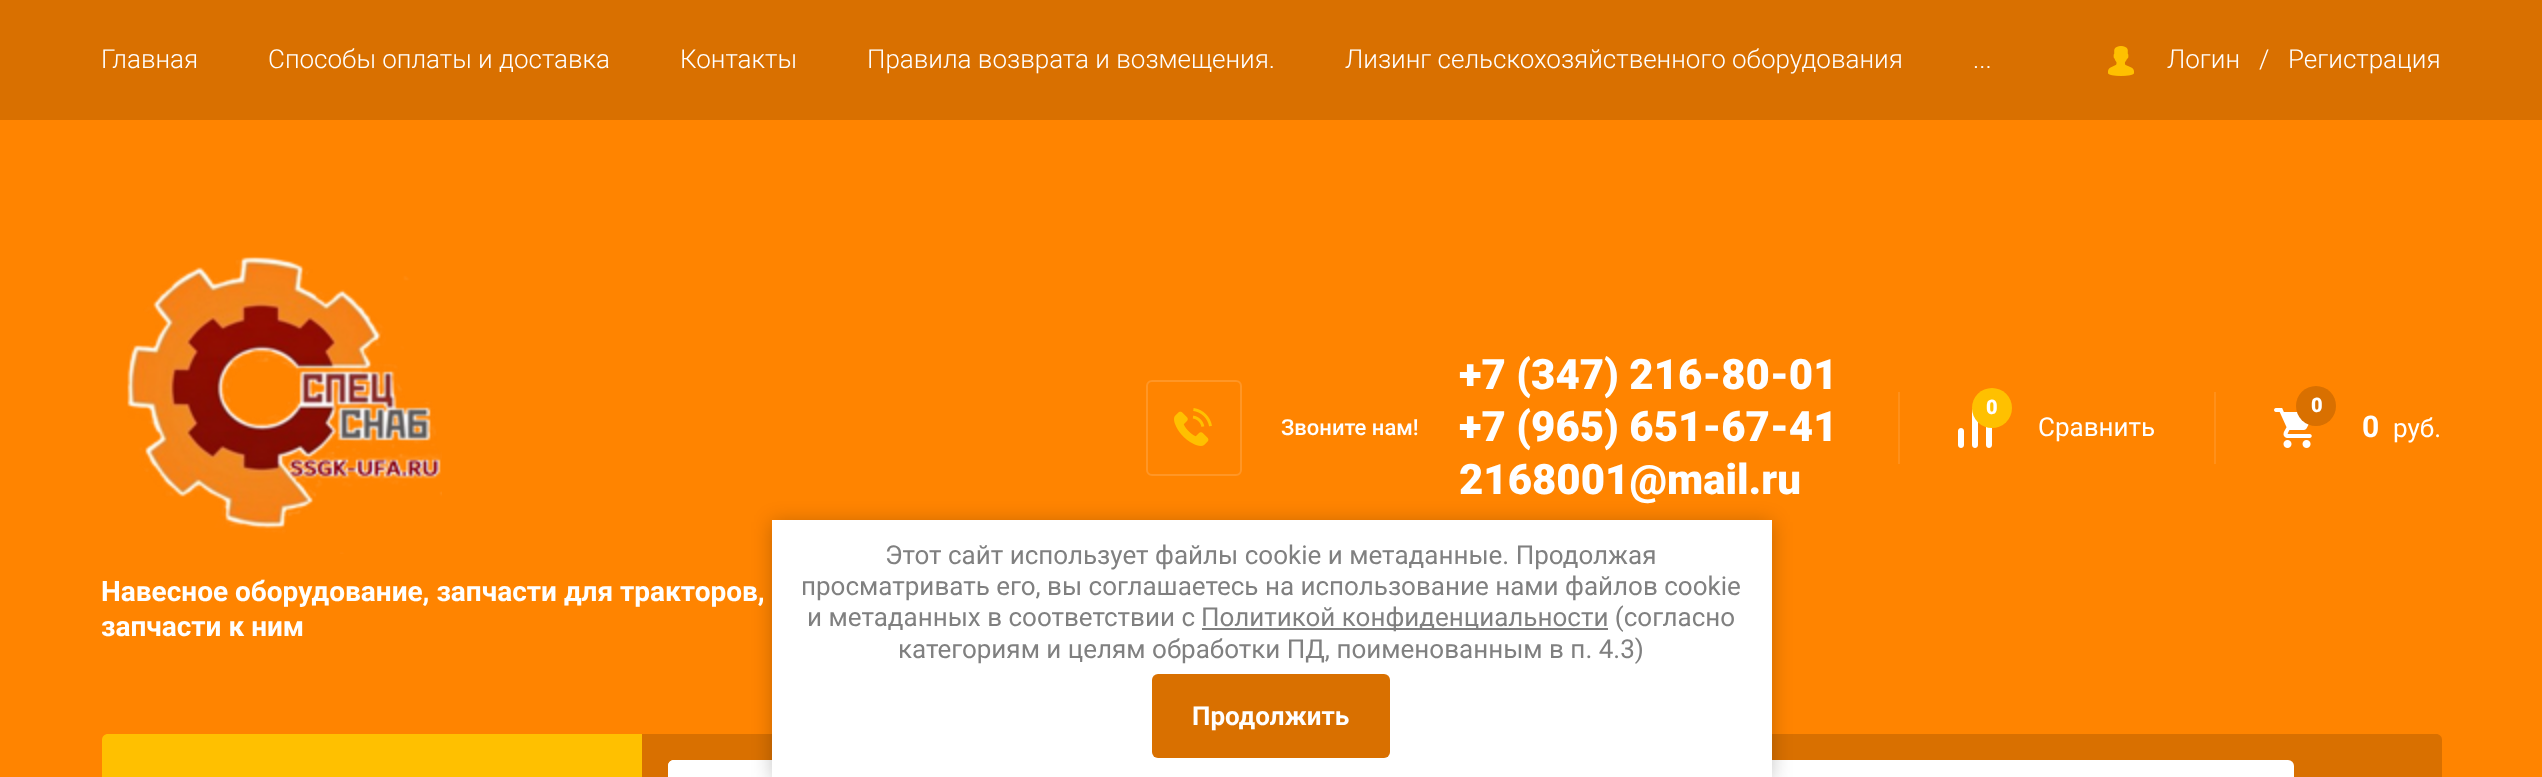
<!DOCTYPE html>
<meta charset="utf-8">
<style>body { margin: 0 } canvas { display: block }</style>
<canvas id="canvas" width="2542" height="777"></canvas>
<img id="img1" src="img_01.png" hidden>
<img id="img2" src="img_02.png" hidden>
<img id="img3" src="img_03.png" hidden>
<img id="img4" src="img_04.png" hidden>
<img id="img5" src="img_05.png" hidden>
<script>
window.onload = function () {
	const canvas = document.getElementById("canvas");
	const ctx = canvas.getContext("2d");
	ctx.miterLimit = 4;
	ctx.fontKerning = "normal";
	function txt(s, x, y) {
		ctx.fillText(s, x, y);
	}
	function fill(x, y, w, h) {
		ctx.fillRect(x, y, w, h);
	}
	function round(x, y, w, h, r) {
		ctx.beginPath();
		ctx.roundRect(x, y, w, h, r);
		ctx.fill();
	}
	function img(id, x, y, w, h) {
		ctx.drawImage(document.getElementById(id), x, y, w, h);
	}

	ctx.fillStyle = "#FF8400";
	fill(0, 0, 2542, 777);
	ctx.fillStyle = "#D97000";
	fill(0, 0, 2542, 120);
	img("img1", 2108, 46, 26, 30);
	img("img2", 1174, 408, 38, 38);
	ctx.beginPath();
	ctx.roundRect(1147, 381, 94, 94, 5);
	ctx.strokeStyle = "#FF9626";
	ctx.lineWidth = 2;
	ctx.stroke();
	ctx.fillStyle = "#FF901A";
	fill(1898, 392, 2, 72);
	img("img3", 1958, 408, 34, 40);
	ctx.fillStyle = "#FFC000";
	ctx.beginPath();
	ctx.arc(1992, 408, 20, 0, Math.PI * 2);
	ctx.fill();
	ctx.fillStyle = "#FF901A";
	fill(2214, 392, 2, 72);
	img("img4", 2274, 408, 38, 40);
	ctx.fillStyle = "#D97000";
	ctx.beginPath();
	ctx.arc(2316, 406, 20, 0, Math.PI * 2);
	ctx.fill();
	img("img5", 127, 256, 315, 298);
	ctx.fillStyle = "#FFC000";
	ctx.beginPath();
	ctx.moveTo(108, 734);
	ctx.lineTo(642, 734);
	ctx.lineTo(642, 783);
	ctx.lineTo(102, 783);
	ctx.lineTo(102, 740);
	ctx.bezierCurveTo(102, 736.5, 104.5, 734, 108, 734);
	ctx.closePath();
	ctx.fill();
	ctx.fillStyle = "#D97000";
	ctx.beginPath();
	ctx.moveTo(642, 734);
	ctx.lineTo(2436, 734);
	ctx.bezierCurveTo(2439.5, 734, 2442, 736.5, 2442, 740);
	ctx.lineTo(2442, 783);
	ctx.lineTo(642, 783);
	ctx.closePath();
	ctx.fill();
	ctx.fillStyle = "#FFFFFF";
	round(668, 760, 1626, 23, 6);
	ctx.beginPath();
	ctx.moveTo(674, 760);
	ctx.lineTo(2174, 760);
	ctx.lineTo(2174, 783);
	ctx.lineTo(674, 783);
	ctx.bezierCurveTo(670.5, 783, 668, 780.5, 668, 777);
	ctx.lineTo(668, 766);
	ctx.bezierCurveTo(668, 762.5, 670.5, 760, 674, 760);
	ctx.closePath();
	ctx.fill();
	ctx.fillStyle = "rgba(0, 0, 0, 0.23)";
	ctx.filter = "blur(10px)";
	ctx.beginPath();
	ctx.rect(772, 522, 1000, 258);
	ctx.fill();
	ctx.filter = "none";
	ctx.fillStyle = "#FFFFFF";
	fill(772, 520, 1000, 257);
	ctx.fillStyle = "#808080";
	fill(1202, 628, 406, 2);
	ctx.fillStyle = "#D97000";
	round(1152, 674, 238, 84, 6);
	ctx.font = "300 26px Roboto";
	ctx.fillStyle = "#FFFFFF";
	txt("Главная", 101, 68);
	txt("Способы оплаты и доставка", 268, 68);
	txt("Контакты", 680, 68);
	txt("Правила возврата и возмещения.", 867, 68);
	txt("Лизинг сельскохозяйственного оборудования", 1345, 68);
	txt("...", 1973, 68);
	txt("Логин", 2167, 68);
	txt("/", 2259, 68);
	txt("Регистрация", 2288, 68);
	ctx.font = "500 22px Roboto";
	txt("Звоните нам!", 1281, 435);
	ctx.font = "900 42px Roboto";
	txt("+7 (347) 216-80-01", 1459, 389);
	txt("+7 (965) 651-67-41", 1459, 441);
	txt("2168001@mail.ru", 1459, 494);
	ctx.font = "900 20px Roboto";
	txt("0", 1986, 414);
	ctx.font = "26px Roboto";
	txt("Сравнить", 2038, 436);
	ctx.font = "900 20px Roboto";
	txt("0", 2311, 412);
	ctx.font = "bold 30px Roboto";
	txt("0", 2362, 437);
	ctx.font = "26px Roboto";
	txt("руб.", 2393, 437);
	ctx.font = "bold 28px Roboto";
	txt("Навесное оборудование, запчасти для тракторов,", 101, 601);
	txt("запчасти к ним", 101, 636);
	ctx.font = "26px Roboto";
	ctx.fillStyle = "#808080";
	txt("Этот сайт использует файлы cookie и метаданные. Продолжая", 885, 564);
	txt("просматривать его, вы соглашаетесь на использование нами файлов cookie", 801, 595);
	txt("и метаданных в соответствии с", 807, 626);
	txt("Политикой конфиденциальности (согласно", 1201, 626);
	txt("категориям и целям обработки ПД, поименованным в п. 4.3)", 898, 658);
	ctx.font = "bold 26px Roboto";
	ctx.fillStyle = "#FFFFFF";
	txt("Продолжить", 1192, 725);
};
</script>
